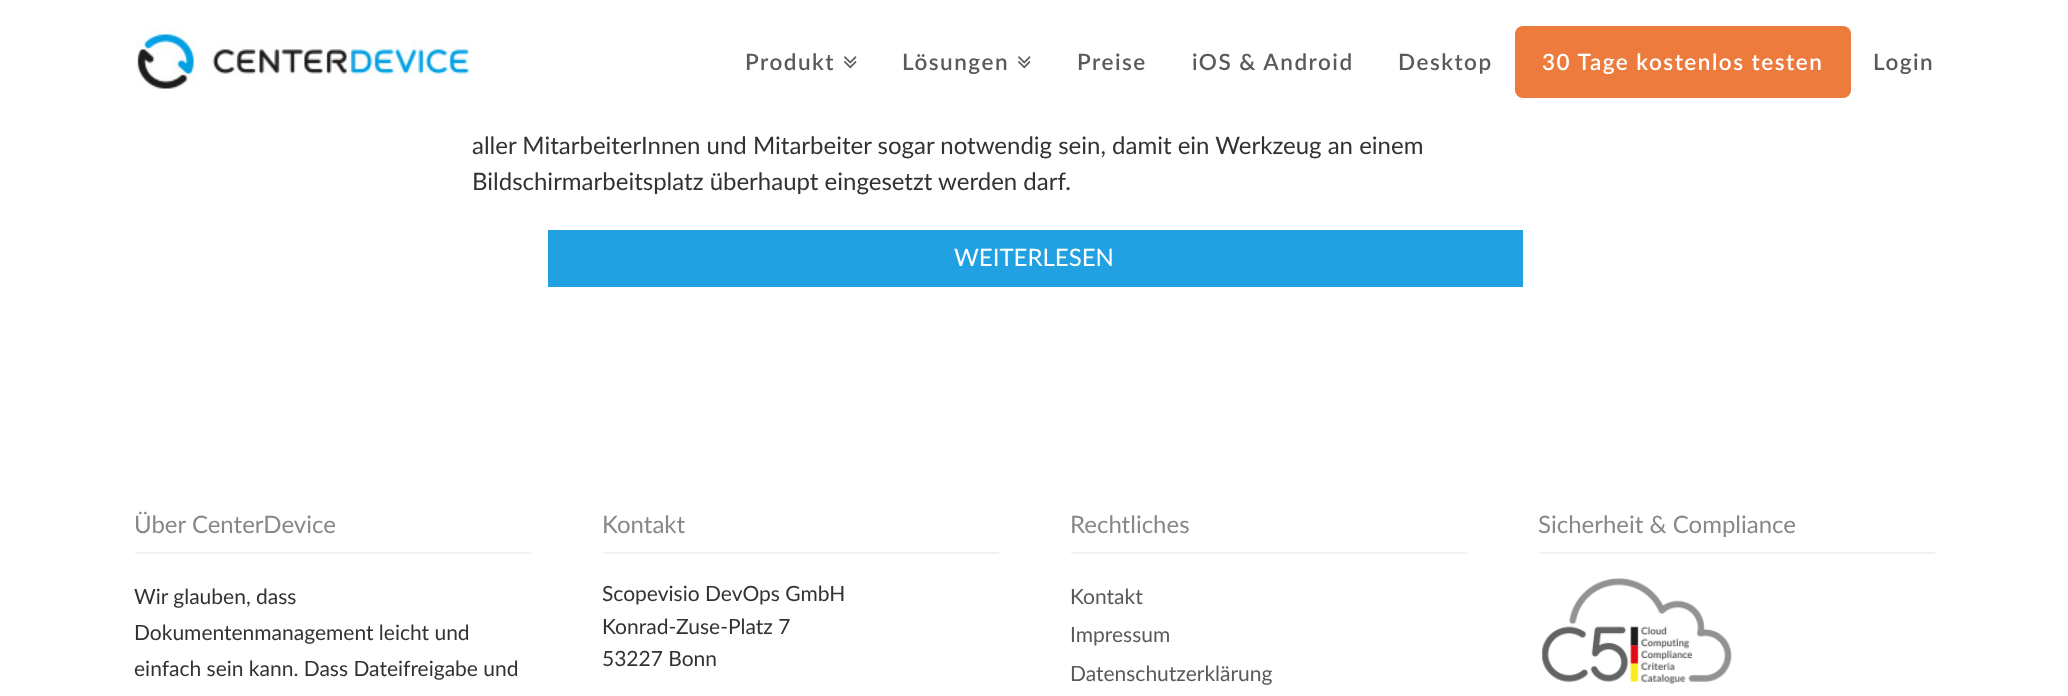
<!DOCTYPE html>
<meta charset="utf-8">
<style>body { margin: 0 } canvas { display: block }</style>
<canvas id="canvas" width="2068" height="696"></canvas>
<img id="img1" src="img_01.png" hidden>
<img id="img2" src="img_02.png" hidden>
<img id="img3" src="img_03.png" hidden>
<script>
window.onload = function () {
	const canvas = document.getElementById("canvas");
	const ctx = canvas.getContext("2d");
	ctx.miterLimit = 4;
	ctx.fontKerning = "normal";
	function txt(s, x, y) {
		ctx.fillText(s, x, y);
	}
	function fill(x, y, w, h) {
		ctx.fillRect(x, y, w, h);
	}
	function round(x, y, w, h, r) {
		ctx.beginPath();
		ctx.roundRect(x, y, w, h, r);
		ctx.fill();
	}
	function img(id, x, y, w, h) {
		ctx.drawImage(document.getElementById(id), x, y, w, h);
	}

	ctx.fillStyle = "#FFFFFF";
	fill(0, 0, 2068, 696);
	img("img1", 135, 27, 336, 62);
	img("img2", 844, 56, 13, 13);
	img("img2", 1018, 56, 13, 13);
	ctx.fillStyle = "#ED7B3D";
	round(1515, 26, 336, 72, 8);
	ctx.fillStyle = "#21A1E1";
	fill(548, 230, 975, 57);
	ctx.fillStyle = "#F2F2F2";
	fill(135, 552, 396, 2);
	fill(603, 552, 396, 2);
	fill(1071, 552, 396, 2);
	fill(1539, 552, 396, 2);
	img("img3", 1541, 578, 191, 106);
	ctx.letterSpacing = "1.5px";
	ctx.font = "600 22.5px Lato";
	ctx.fillStyle = "#5A5A5A";
	txt("Produkt", 745, 70);
	txt("Lösungen", 902, 70);
	txt("Preise", 1077, 70);
	txt("iOS & Android", 1192, 70);
	txt("Desktop", 1398, 70);
	ctx.fillStyle = "#FFFFFF";
	txt("30 Tage kostenlos testen", 1542, 70);
	ctx.fillStyle = "#5A5A5A";
	txt("Login", 1873, 70);
	ctx.letterSpacing = "0px";
	ctx.font = "24px Lato";
	ctx.fillStyle = "#313233";
	txt("aller MitarbeiterInnen und Mitarbeiter sogar notwendig sein, damit ein Werkzeug an einem", 472, 154);
	txt("Bildschirmarbeitsplatz überhaupt eingesetzt werden darf.", 472, 190);
	ctx.fillStyle = "#FFFFFF";
	txt("WEITERLESEN", 954, 266);
	ctx.fillStyle = "#888888";
	txt("Über CenterDevice", 134, 533);
	ctx.font = "21px Lato";
	ctx.fillStyle = "#313233";
	txt("Wir glauben, dass", 134, 604);
	txt("Dokumentenmanagement leicht und", 134, 640);
	txt("einfach sein kann. Dass Dateifreigabe und", 134, 676);
	ctx.font = "24px Lato";
	ctx.fillStyle = "#888888";
	txt("Kontakt", 602, 533);
	ctx.font = "21px Lato";
	ctx.fillStyle = "#313233";
	txt("Scopevisio DevOps GmbH", 602, 601);
	txt("Konrad-Zuse-Platz 7", 602, 634);
	txt("53227 Bonn", 602, 666);
	ctx.font = "24px Lato";
	ctx.fillStyle = "#888888";
	txt("Rechtliches", 1070, 533);
	ctx.font = "21px Lato";
	ctx.fillStyle = "#5A5A5A";
	txt("Kontakt", 1070, 604);
	txt("Impressum", 1070, 642);
	txt("Datenschutzerklärung", 1070, 681);
	ctx.font = "24px Lato";
	ctx.fillStyle = "#888888";
	txt("Sicherheit & Compliance", 1538, 533);
};
</script>
